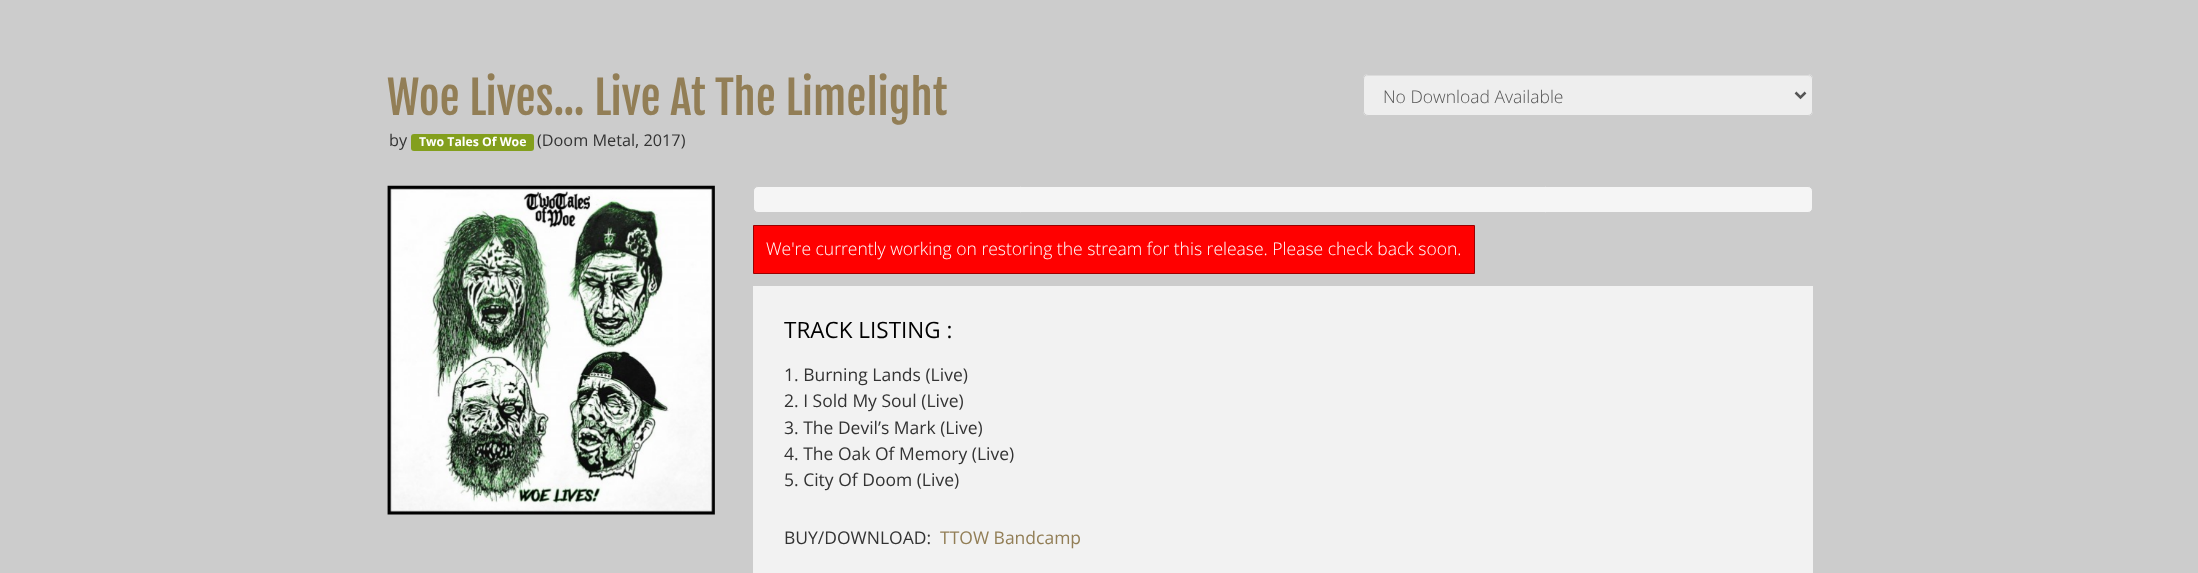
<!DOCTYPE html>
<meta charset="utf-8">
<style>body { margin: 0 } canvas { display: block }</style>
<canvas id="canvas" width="2198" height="573"></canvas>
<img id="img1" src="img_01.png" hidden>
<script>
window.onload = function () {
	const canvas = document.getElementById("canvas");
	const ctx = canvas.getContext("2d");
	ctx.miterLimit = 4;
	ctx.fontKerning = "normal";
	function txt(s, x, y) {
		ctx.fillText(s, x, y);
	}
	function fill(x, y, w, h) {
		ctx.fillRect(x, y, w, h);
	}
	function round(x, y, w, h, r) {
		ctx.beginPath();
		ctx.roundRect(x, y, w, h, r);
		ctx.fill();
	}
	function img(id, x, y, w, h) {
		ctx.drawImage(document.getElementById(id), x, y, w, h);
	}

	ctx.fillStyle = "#CCCCCC";
	fill(0, 0, 2198, 573);
	ctx.fillStyle = "#839F1D";
	round(411, 134, 123, 17, 3);
	ctx.fillStyle = "#EEEEEE";
	round(1363, 74, 450, 42, 5);
	ctx.fillStyle = "#DCDCDC";
	ctx.beginPath();
	ctx.moveTo(1368, 76);
	ctx.lineTo(1808, 76);
	ctx.bezierCurveTo(1810, 76, 1811, 78, 1811, 80);
	ctx.bezierCurveTo(1811, 77, 1810, 75, 1807, 75);
	ctx.lineTo(1368, 75);
	ctx.lineTo(1366, 76);
	ctx.lineTo(1365, 77);
	ctx.lineTo(1364, 80);
	ctx.bezierCurveTo(1364, 78, 1365, 76, 1368, 76);
	ctx.closePath();
	ctx.fill();
	ctx.beginPath();
	ctx.roundRect(1363.5, 74.5, 449, 41, 4.5);
	ctx.strokeStyle = "#CCCCCC";
	ctx.stroke();
	ctx.beginPath();
	ctx.moveTo(1795.5, 92.5);
	ctx.lineTo(1800.5, 97.5);
	ctx.lineTo(1805.5, 92.5);
	ctx.strokeStyle = "#555555";
	ctx.lineWidth = 2.5;
	ctx.stroke();
	img("img1", 387, 185, 328, 330);
	ctx.fillStyle = "#F5F5F5";
	ctx.beginPath();
	ctx.roundRect(753.5, 186.5, 1059, 26, 4.5);
	ctx.fill();
	ctx.strokeStyle = "#CCCCCC";
	ctx.lineWidth = 1;
	ctx.stroke();
	ctx.fillStyle = "#FF0000";
	ctx.beginPath();
	ctx.rect(753.5, 225.5, 721, 48);
	ctx.fill();
	ctx.strokeStyle = "#990000";
	ctx.stroke();
	ctx.fillStyle = "#F2F2F2";
	fill(753, 286, 1060, 287);
	ctx.font = "45px Fjalla One";
	ctx.fillStyle = "#927E56";
	txt("Woe Lives... Live At The Limelight", 387, 115);
	ctx.font = "16.25px Open Sans";
	ctx.fillStyle = "#333333";
	txt("by", 389, 146);
	ctx.font = "bold 12.25px Open Sans";
	ctx.fillStyle = "#FFFFFF";
	txt("Two Tales Of Woe", 419, 146);
	ctx.font = "16.25px Open Sans";
	ctx.fillStyle = "#333333";
	txt("(Doom Metal, 2017)", 537, 146);
	ctx.font = "300 17.5px Open Sans";
	ctx.fillStyle = "#555555";
	txt("No Download Available", 1383, 103);
	ctx.fillStyle = "#FFFFFF";
	txt("We're currently working on restoring the stream for this release. Please check back soon.", 766, 255);
	ctx.font = "22.5px Open Sans";
	ctx.fillStyle = "#000000";
	txt("TRACK LISTING :", 784, 338);
	ctx.font = "17.5px Open Sans";
	ctx.fillStyle = "#333333";
	txt("1. Burning Lands (Live)", 784, 381);
	txt("2. I Sold My Soul (Live)", 784, 407);
	txt("3. The Devil’s Mark (Live)", 784, 434);
	txt("4. The Oak Of Memory (Live)", 784, 460);
	txt("5. City Of Doom (Live)", 784, 486);
	txt("BUY/DOWNLOAD:", 784, 544);
	ctx.fillStyle = "#927E56";
	txt("TTOW Bandcamp", 940, 544);
};
</script>
